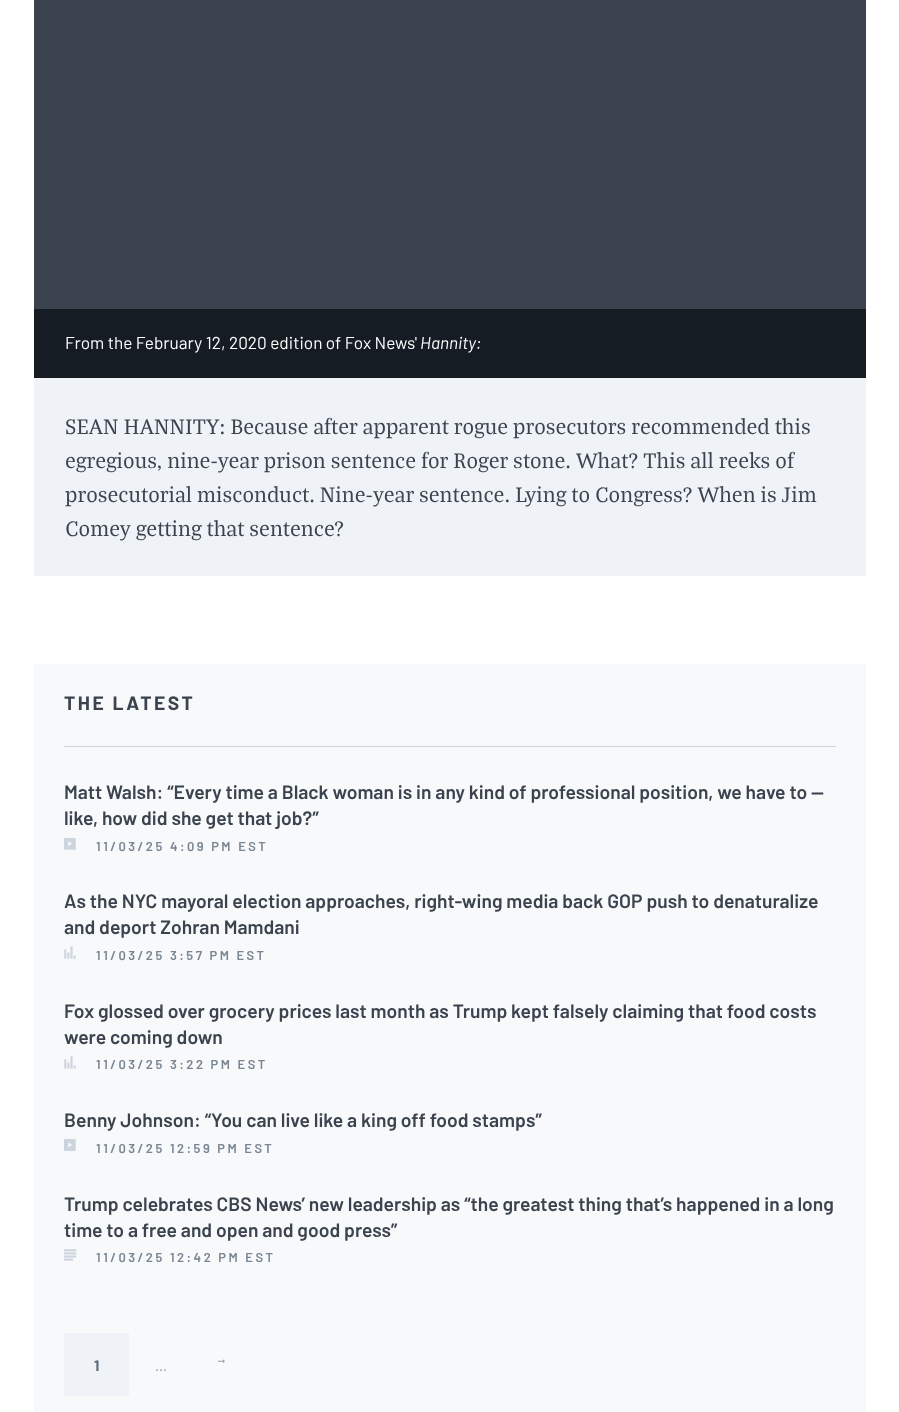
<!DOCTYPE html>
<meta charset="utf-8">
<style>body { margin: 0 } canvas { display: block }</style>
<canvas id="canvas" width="899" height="1412"></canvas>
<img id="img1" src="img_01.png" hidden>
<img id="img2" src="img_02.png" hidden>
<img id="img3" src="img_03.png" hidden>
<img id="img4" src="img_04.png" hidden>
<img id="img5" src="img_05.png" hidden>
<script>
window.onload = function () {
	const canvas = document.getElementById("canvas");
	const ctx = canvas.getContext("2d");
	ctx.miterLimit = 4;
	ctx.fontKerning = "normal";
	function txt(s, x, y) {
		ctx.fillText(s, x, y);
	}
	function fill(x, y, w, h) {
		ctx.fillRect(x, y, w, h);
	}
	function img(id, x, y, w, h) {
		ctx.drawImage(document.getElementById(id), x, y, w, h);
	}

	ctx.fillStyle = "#FFFFFF";
	fill(0, 0, 899, 1412);
	ctx.fillStyle = "#3A434E";
	fill(34, 0, 832, 309);
	ctx.fillStyle = "#EFF3F7";
	fill(34, 378, 832, 198);
	ctx.fillStyle = "#161C24";
	fill(34, 309, 832, 69);
	ctx.fillStyle = "#F7F9FB";
	fill(34, 664, 832, 748);
	ctx.fillStyle = "#CCD4DD";
	fill(64, 746, 772, 1);
	img("img1", 64, 838, 12, 12);
	img("img2", 64, 946, 12, 13);
	img("img2", 64, 1056, 12, 13);
	img("img3", 64, 1139, 12, 12);
	img("img4", 64, 1249, 13, 12);
	ctx.fillStyle = "#EFF3F7";
	fill(64, 1333, 65, 63);
	img("img5", 218, 1359, 7, 4);
	ctx.font = "17.2px Barlow";
	ctx.fillStyle = "#FFFFFF";
	txt("From the February 12, 2020 edition of Fox News'", 65, 349);
	ctx.font = "italic 17.2px Barlow";
	txt("Hannity:", 420, 349);
	ctx.font = "22.5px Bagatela";
	ctx.fillStyle = "#3A434E";
	txt("SEAN HANNITY: Because after apparent rogue prosecutors recommended this", 65, 434);
	txt("egregious, nine-year prison sentence for Roger stone. What? This all reeks of", 65, 468);
	txt("prosecutorial misconduct. Nine-year sentence. Lying to Congress? When is Jim", 65, 502);
	txt("Comey getting that sentence?", 65, 536);
	ctx.letterSpacing = "2.5px";
	ctx.font = "bold 19.3px Barlow";
	txt("THE LATEST", 64, 710);
	ctx.letterSpacing = "0px";
	ctx.font = "600 19.3px Barlow";
	txt("Matt Walsh: “Every time a Black woman is in any kind of professional position, we have to —", 64, 799);
	txt("like, how did she get that job?”", 64, 825);
	ctx.letterSpacing = "2.5px";
	ctx.font = "600 12.9px Barlow";
	ctx.fillStyle = "#788592";
	txt("11/03/25 4:09 PM EST", 96, 851);
	ctx.letterSpacing = "0px";
	ctx.font = "600 19.3px Barlow";
	ctx.fillStyle = "#3A434E";
	txt("As the NYC mayoral election approaches, right-wing media back GOP push to denaturalize", 64, 908);
	txt("and deport Zohran Mamdani", 64, 934);
	ctx.letterSpacing = "2.5px";
	ctx.font = "600 12.9px Barlow";
	ctx.fillStyle = "#788592";
	txt("11/03/25 3:57 PM EST", 96, 960);
	ctx.letterSpacing = "0px";
	ctx.font = "600 19.3px Barlow";
	ctx.fillStyle = "#3A434E";
	txt("Fox glossed over grocery prices last month as Trump kept falsely claiming that food costs", 64, 1018);
	txt("were coming down", 64, 1044);
	ctx.letterSpacing = "2.5px";
	ctx.font = "600 12.9px Barlow";
	ctx.fillStyle = "#788592";
	txt("11/03/25 3:22 PM EST", 96, 1069);
	ctx.letterSpacing = "0px";
	ctx.font = "600 19.3px Barlow";
	ctx.fillStyle = "#3A434E";
	txt("Benny Johnson: “You can live like a king off food stamps”", 64, 1127);
	ctx.letterSpacing = "2.5px";
	ctx.font = "600 12.9px Barlow";
	ctx.fillStyle = "#788592";
	txt("11/03/25 12:59 PM EST", 96, 1153);
	ctx.letterSpacing = "0px";
	ctx.font = "600 19.3px Barlow";
	ctx.fillStyle = "#3A434E";
	txt("Trump celebrates CBS News’ new leadership as “the greatest thing that’s happened in a long", 64, 1211);
	txt("time to a free and open and good press”", 64, 1237);
	ctx.letterSpacing = "2.5px";
	ctx.font = "600 12.9px Barlow";
	ctx.fillStyle = "#788592";
	txt("11/03/25 12:42 PM EST", 96, 1262);
	ctx.letterSpacing = "0px";
	ctx.font = "bold 15px Barlow";
	ctx.fillStyle = "#5D6A79";
	txt("1", 94, 1371);
	ctx.font = "15px Barlow";
	ctx.fillStyle = "#939DA8";
	txt("…", 155, 1371);
};
</script>
